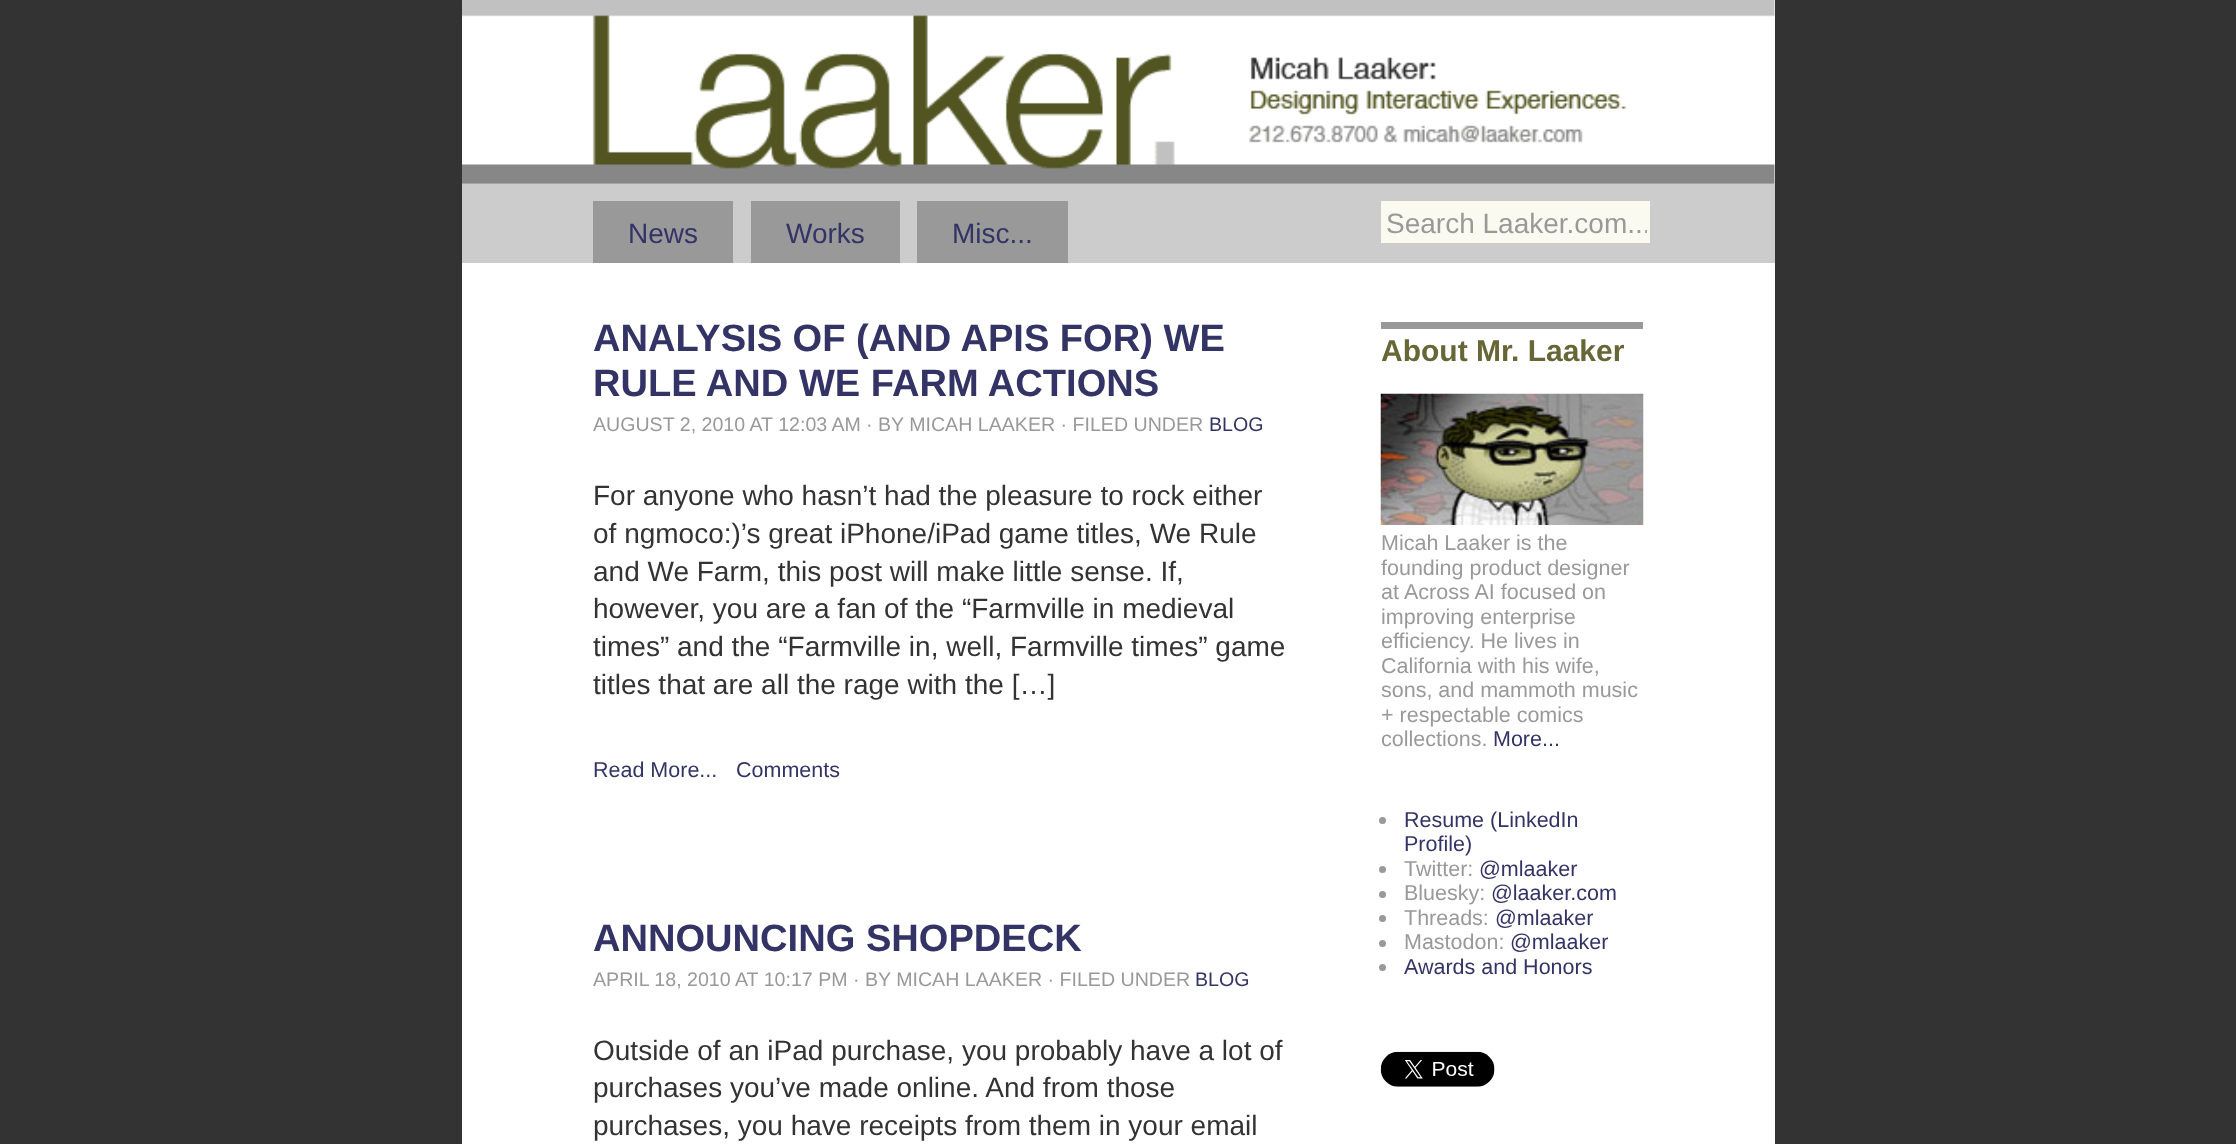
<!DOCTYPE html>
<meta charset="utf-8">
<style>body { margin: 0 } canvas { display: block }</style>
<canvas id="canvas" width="2236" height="1144"></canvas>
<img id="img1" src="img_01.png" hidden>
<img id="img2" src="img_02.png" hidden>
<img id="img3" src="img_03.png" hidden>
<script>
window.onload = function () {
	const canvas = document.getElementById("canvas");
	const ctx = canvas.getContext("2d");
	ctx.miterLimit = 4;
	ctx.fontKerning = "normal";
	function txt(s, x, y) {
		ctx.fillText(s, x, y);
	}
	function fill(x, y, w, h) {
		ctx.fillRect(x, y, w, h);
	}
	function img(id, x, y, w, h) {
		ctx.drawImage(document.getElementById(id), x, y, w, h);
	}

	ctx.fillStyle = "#333333";
	fill(0, 0, 2236, 1144);
	ctx.fillStyle = "#FFFFFF";
	fill(462, 0, 1313, 1144);
	img("img1", 462, 0, 1313, 184);
	ctx.fillStyle = "#CCCCCC";
	fill(462, 184, 1313, 79);
	ctx.fillStyle = "#999999";
	fill(593, 201, 140, 62);
	fill(751, 201, 149, 62);
	fill(917, 201, 151, 62);
	ctx.fillStyle = "#FAFAF0";
	fill(1381, 201, 269, 42);
	ctx.fillStyle = "#999999";
	fill(1381, 322, 262, 7);
	img("img2", 1380, 393, 264, 132);
	ctx.beginPath();
	ctx.arc(1382.5, 820.5, 3.5, 0, Math.PI * 2);
	ctx.fill();
	ctx.beginPath();
	ctx.arc(1382.5, 869.5, 3.5, 0, Math.PI * 2);
	ctx.fill();
	ctx.beginPath();
	ctx.arc(1382.5, 894.5, 3.5, 0, Math.PI * 2);
	ctx.fill();
	ctx.beginPath();
	ctx.arc(1382.5, 918.5, 3.5, 0, Math.PI * 2);
	ctx.fill();
	ctx.beginPath();
	ctx.arc(1382.5, 943.5, 3.5, 0, Math.PI * 2);
	ctx.fill();
	ctx.beginPath();
	ctx.arc(1382.5, 967.5, 3.5, 0, Math.PI * 2);
	ctx.fill();
	img("img3", 1380, 1051, 115, 36);
	ctx.font = "28px Liberation Sans";
	ctx.fillStyle = "#333366";
	txt("News", 628, 243);
	txt("Works", 786, 243);
	txt("Misc...", 952, 243);
	ctx.save();
	ctx.beginPath();
	ctx.rect(1386, 208, 261, 32);
	ctx.clip();
	ctx.fillStyle = "#999999";
	txt("Search Laaker.com...", 1386, 233);
	ctx.restore();
	ctx.font = "bold 38.1px Liberation Sans";
	txt("ANALYSIS OF (AND APIS FOR) WE", 593, 351);
	txt("RULE AND WE FARM ACTIONS", 593, 396);
	ctx.font = "19.6px Liberation Sans";
	ctx.fillStyle = "#999999";
	txt("AUGUST 2, 2010 AT 12:03 AM", 593, 431);
	txt("· BY MICAH LAAKER · FILED UNDER", 866, 431);
	ctx.fillStyle = "#333366";
	txt("BLOG", 1209, 431);
	ctx.font = "28px Liberation Sans";
	ctx.fillStyle = "#333333";
	txt("For anyone who hasn’t had the pleasure to rock either", 593, 505);
	txt("of ngmoco:)’s great iPhone/iPad game titles, We Rule", 593, 543);
	txt("and We Farm, this post will make little sense. If,", 593, 581);
	txt("however, you are a fan of the “Farmville in medieval", 593, 618);
	txt("times” and the “Farmville in, well, Farmville times” game", 593, 656);
	txt("titles that are all the rage with the […]", 593, 694);
	ctx.font = "21.5px Liberation Sans";
	ctx.fillStyle = "#333366";
	txt("Read More...", 593, 777);
	txt("Comments", 736, 777);
	ctx.font = "bold 38.1px Liberation Sans";
	txt("ANNOUNCING SHOPDECK", 593, 951);
	ctx.font = "19.6px Liberation Sans";
	ctx.fillStyle = "#999999";
	txt("APRIL 18, 2010 AT 10:17 PM", 593, 986);
	txt("· BY MICAH LAAKER · FILED UNDER", 853, 986);
	ctx.fillStyle = "#333366";
	txt("BLOG", 1195, 986);
	ctx.font = "28px Liberation Sans";
	ctx.fillStyle = "#333333";
	txt("Outside of an iPad purchase, you probably have a lot of", 593, 1060);
	txt("purchases you’ve made online. And from those", 593, 1097);
	txt("purchases, you have receipts from them in your email", 593, 1135);
	ctx.font = "bold 30px Liberation Sans";
	ctx.fillStyle = "#666636";
	txt("About Mr. Laaker", 1381, 361);
	ctx.font = "21.5px Liberation Sans";
	ctx.fillStyle = "#999999";
	txt("Micah Laaker is the", 1381, 550);
	txt("founding product designer", 1381, 575);
	txt("at", 1381, 599);
	txt("Across AI focused on", 1404, 599);
	txt("improving enterprise", 1381, 624);
	txt("efficiency. He lives in", 1381, 648);
	txt("California with his wife,", 1381, 673);
	txt("sons, and mammoth music", 1381, 697);
	txt("+ respectable comics", 1381, 722);
	txt("collections.", 1381, 746);
	ctx.fillStyle = "#333366";
	txt("More...", 1493, 746);
	txt("Resume (LinkedIn", 1404, 827);
	txt("Profile)", 1404, 851);
	ctx.fillStyle = "#999999";
	txt("Twitter:", 1404, 876);
	ctx.fillStyle = "#333366";
	txt("@mlaaker", 1479, 876);
	ctx.fillStyle = "#999999";
	txt("Bluesky:", 1404, 900);
	ctx.fillStyle = "#333366";
	txt("@laaker.com", 1491, 900);
	ctx.fillStyle = "#999999";
	txt("Threads:", 1404, 925);
	ctx.fillStyle = "#333366";
	txt("@mlaaker", 1495, 925);
	ctx.fillStyle = "#999999";
	txt("Mastodon:", 1404, 949);
	ctx.fillStyle = "#333366";
	txt("@mlaaker", 1510, 949);
	txt("Awards and Honors", 1404, 974);
};
</script>
